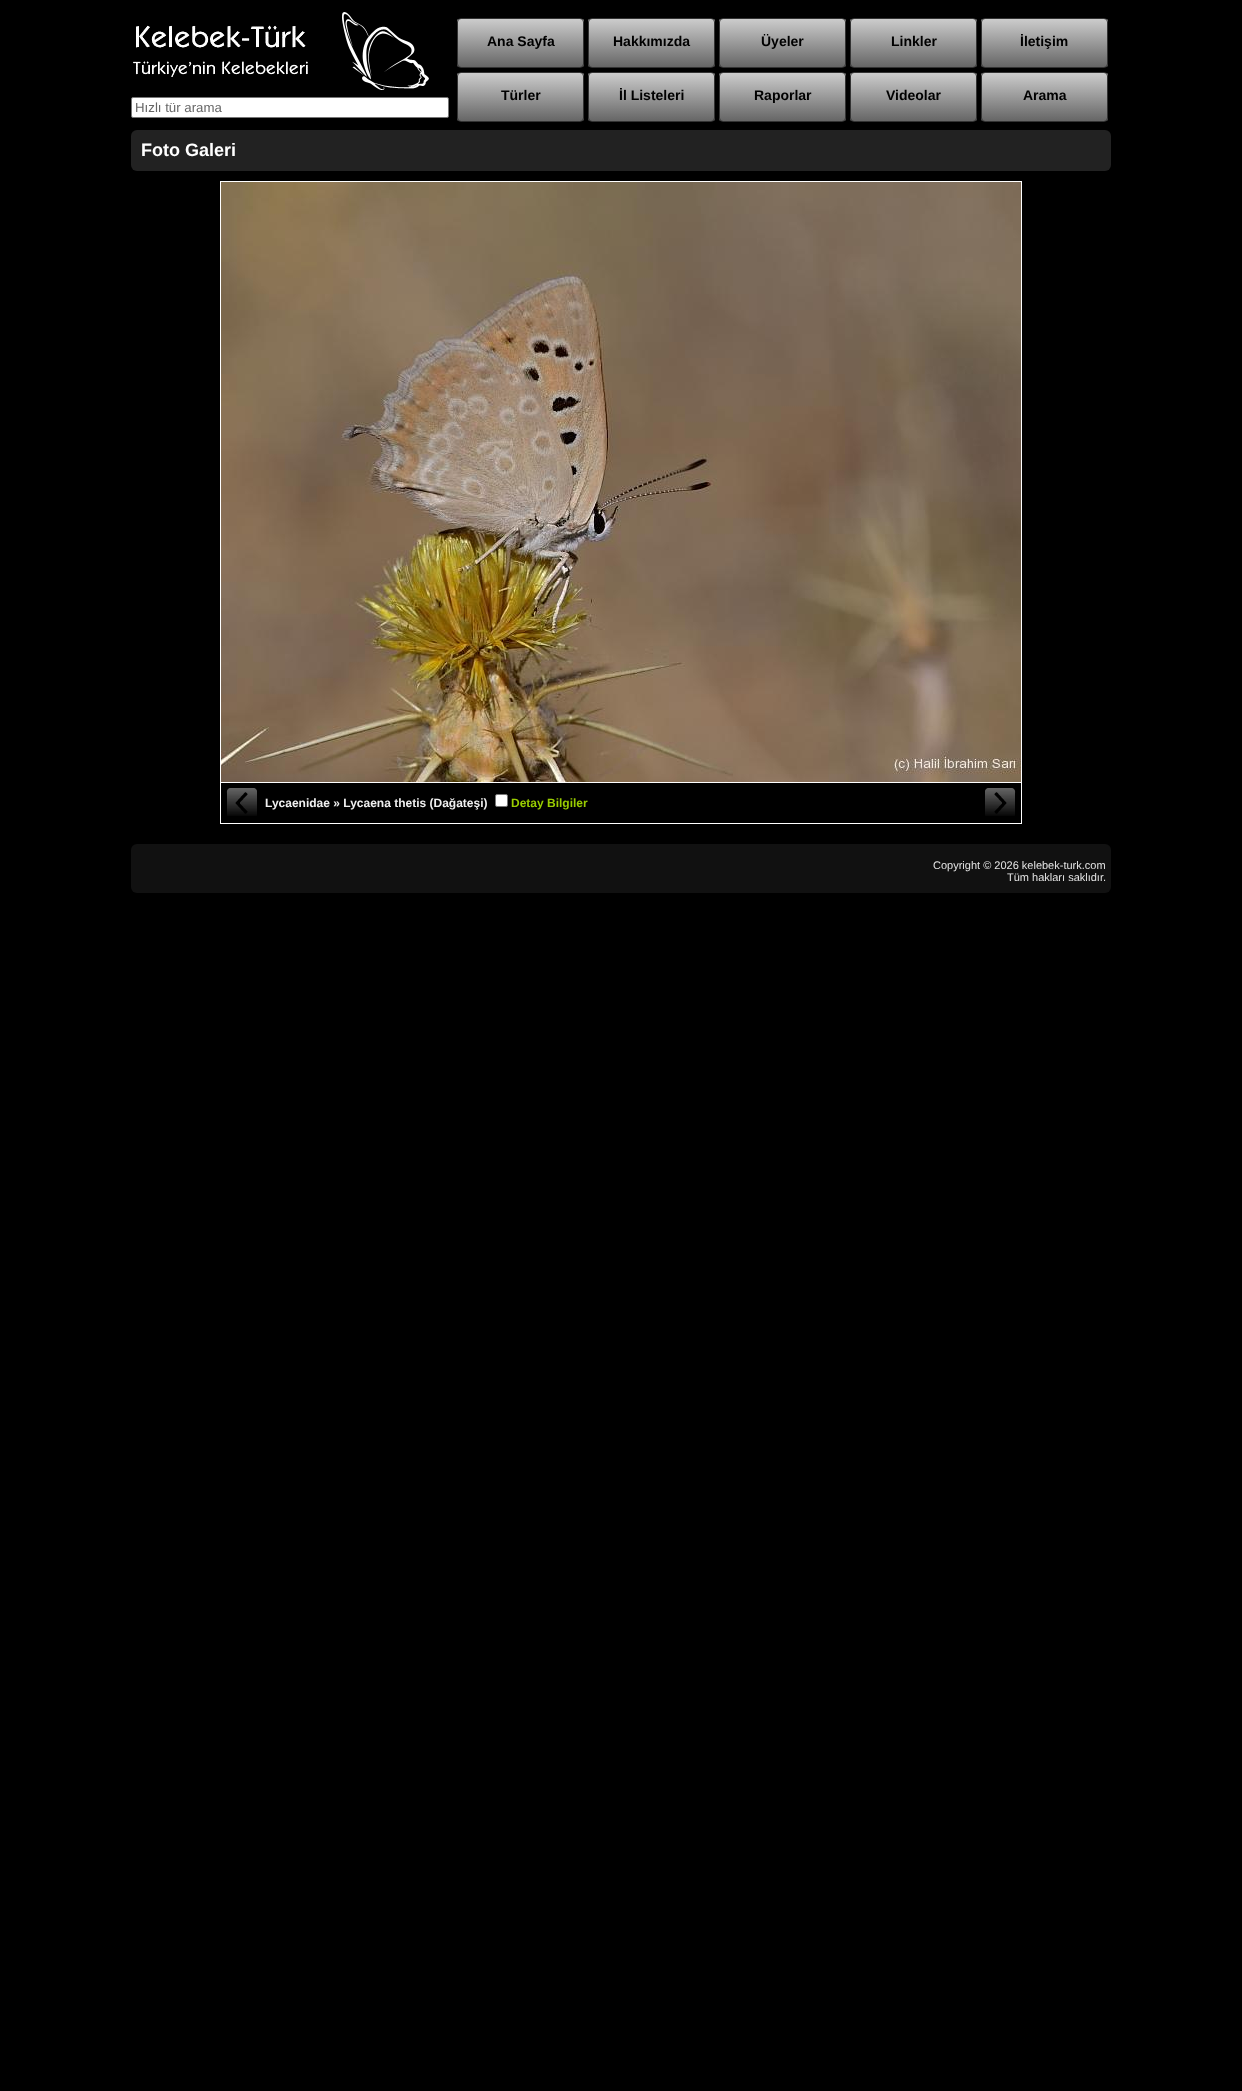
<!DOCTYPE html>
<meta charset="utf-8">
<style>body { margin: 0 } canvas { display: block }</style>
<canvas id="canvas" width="1242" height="2091"></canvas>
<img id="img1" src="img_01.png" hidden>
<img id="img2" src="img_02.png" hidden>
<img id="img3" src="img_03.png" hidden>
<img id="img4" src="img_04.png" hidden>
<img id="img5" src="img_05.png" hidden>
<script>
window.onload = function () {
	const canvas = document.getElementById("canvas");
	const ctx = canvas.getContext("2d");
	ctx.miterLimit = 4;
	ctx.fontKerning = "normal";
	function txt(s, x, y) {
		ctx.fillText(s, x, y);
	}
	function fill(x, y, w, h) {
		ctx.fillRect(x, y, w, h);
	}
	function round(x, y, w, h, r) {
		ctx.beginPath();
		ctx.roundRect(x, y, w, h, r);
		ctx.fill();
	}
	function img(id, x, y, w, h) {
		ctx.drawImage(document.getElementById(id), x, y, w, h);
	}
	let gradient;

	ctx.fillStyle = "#000000";
	fill(0, 0, 1242, 2091);
	img("img1", 133, 25, 175, 52);
	img("img2", 342, 12, 87, 78);
	ctx.save();
	ctx.beginPath();
	ctx.roundRect(457, 18, 127, 50, 4);
	ctx.clip();
	gradient = ctx.createLinearGradient(458, 19, 458, 67);
	gradient.addColorStop(0, "#CCCCCC");
	gradient.addColorStop(1, "#666666");
	ctx.fillStyle = gradient;
	fill(457, 19, 127, 48);
	ctx.restore();
	ctx.beginPath();
	ctx.roundRect(457.5, 18.5, 126, 49, 3.5);
	ctx.strokeStyle = "#333333";
	ctx.stroke();
	ctx.save();
	ctx.beginPath();
	ctx.roundRect(588, 18, 127, 50, 4);
	ctx.clip();
	gradient = ctx.createLinearGradient(589, 19, 589, 67);
	gradient.addColorStop(0, "#CCCCCC");
	gradient.addColorStop(1, "#666666");
	ctx.fillStyle = gradient;
	fill(588, 19, 127, 48);
	ctx.restore();
	ctx.beginPath();
	ctx.roundRect(588.5, 18.5, 126, 49, 3.5);
	ctx.stroke();
	ctx.save();
	ctx.beginPath();
	ctx.roundRect(719, 18, 127, 50, 4);
	ctx.clip();
	gradient = ctx.createLinearGradient(720, 19, 720, 67);
	gradient.addColorStop(0, "#CCCCCC");
	gradient.addColorStop(1, "#666666");
	ctx.fillStyle = gradient;
	fill(719, 19, 127, 48);
	ctx.restore();
	ctx.beginPath();
	ctx.roundRect(719.5, 18.5, 126, 49, 3.5);
	ctx.stroke();
	ctx.save();
	ctx.beginPath();
	ctx.roundRect(850, 18, 127, 50, 4);
	ctx.clip();
	gradient = ctx.createLinearGradient(851, 19, 851, 67);
	gradient.addColorStop(0, "#CCCCCC");
	gradient.addColorStop(1, "#666666");
	ctx.fillStyle = gradient;
	fill(850, 19, 127, 48);
	ctx.restore();
	ctx.beginPath();
	ctx.roundRect(850.5, 18.5, 126, 49, 3.5);
	ctx.stroke();
	ctx.save();
	ctx.beginPath();
	ctx.roundRect(981, 18, 127, 50, 4);
	ctx.clip();
	gradient = ctx.createLinearGradient(982, 19, 982, 67);
	gradient.addColorStop(0, "#CCCCCC");
	gradient.addColorStop(1, "#666666");
	ctx.fillStyle = gradient;
	fill(981, 19, 127, 48);
	ctx.restore();
	ctx.beginPath();
	ctx.roundRect(981.5, 18.5, 126, 49, 3.5);
	ctx.stroke();
	ctx.save();
	ctx.beginPath();
	ctx.roundRect(457, 72, 127, 50, 4);
	ctx.clip();
	gradient = ctx.createLinearGradient(458, 73, 458, 121);
	gradient.addColorStop(0, "#CCCCCC");
	gradient.addColorStop(1, "#666666");
	ctx.fillStyle = gradient;
	fill(457, 73, 127, 48);
	ctx.restore();
	ctx.beginPath();
	ctx.roundRect(457.5, 72.5, 126, 49, 3.5);
	ctx.stroke();
	ctx.save();
	ctx.beginPath();
	ctx.roundRect(588, 72, 127, 50, 4);
	ctx.clip();
	gradient = ctx.createLinearGradient(589, 73, 589, 121);
	gradient.addColorStop(0, "#CCCCCC");
	gradient.addColorStop(1, "#666666");
	ctx.fillStyle = gradient;
	fill(588, 73, 127, 48);
	ctx.restore();
	ctx.beginPath();
	ctx.roundRect(588.5, 72.5, 126, 49, 3.5);
	ctx.stroke();
	ctx.save();
	ctx.beginPath();
	ctx.roundRect(719, 72, 127, 50, 4);
	ctx.clip();
	gradient = ctx.createLinearGradient(720, 73, 720, 121);
	gradient.addColorStop(0, "#CCCCCC");
	gradient.addColorStop(1, "#666666");
	ctx.fillStyle = gradient;
	fill(719, 73, 127, 48);
	ctx.restore();
	ctx.beginPath();
	ctx.roundRect(719.5, 72.5, 126, 49, 3.5);
	ctx.stroke();
	ctx.save();
	ctx.beginPath();
	ctx.roundRect(850, 72, 127, 50, 4);
	ctx.clip();
	gradient = ctx.createLinearGradient(851, 73, 851, 121);
	gradient.addColorStop(0, "#CCCCCC");
	gradient.addColorStop(1, "#666666");
	ctx.fillStyle = gradient;
	fill(850, 73, 127, 48);
	ctx.restore();
	ctx.beginPath();
	ctx.roundRect(850.5, 72.5, 126, 49, 3.5);
	ctx.stroke();
	ctx.save();
	ctx.beginPath();
	ctx.roundRect(981, 72, 127, 50, 4);
	ctx.clip();
	gradient = ctx.createLinearGradient(982, 73, 982, 121);
	gradient.addColorStop(0, "#CCCCCC");
	gradient.addColorStop(1, "#666666");
	ctx.fillStyle = gradient;
	fill(981, 73, 127, 48);
	ctx.restore();
	ctx.beginPath();
	ctx.roundRect(981.5, 72.5, 126, 49, 3.5);
	ctx.stroke();
	ctx.fillStyle = "#FFFFFF";
	ctx.beginPath();
	ctx.roundRect(131.5, 97.5, 317, 20, 1.5);
	ctx.fill();
	ctx.strokeStyle = "#767676";
	ctx.stroke();
	ctx.fillStyle = "#222222";
	round(131, 130, 980, 41, 6);
	ctx.strokeStyle = "#FFFFFF";
	ctx.strokeRect(220.5, 181.5, 801, 601);
	img("img3", 221, 182, 800, 600);
	ctx.fillStyle = "#FFFFFF";
	fill(1021, 783, 1, 41);
	fill(220, 823, 802, 1);
	fill(220, 783, 1, 41);
	img("img4", 226, 788, 31, 28);
	ctx.beginPath();
	ctx.roundRect(495.5, 794.5, 12, 12, 1.5);
	ctx.fill();
	ctx.strokeStyle = "#767676";
	ctx.stroke();
	img("img5", 985, 788, 31, 28);
	ctx.fillStyle = "#111111";
	round(131, 844, 980, 49, 6);
	ctx.font = "bold 14px Liberation Sans";
	ctx.fillStyle = "#000000";
	txt("Ana Sayfa", 487, 46);
	txt("Hakkımızda", 613, 46);
	txt("Üyeler", 761, 46);
	txt("Linkler", 891, 46);
	txt("İletişim", 1020, 46);
	txt("Türler", 501, 100);
	txt("İl Listeleri", 619, 100);
	txt("Raporlar", 754, 100);
	txt("Videolar", 886, 100);
	txt("Arama", 1023, 100);
	ctx.font = "13.25px Liberation Sans";
	ctx.fillStyle = "#666666";
	txt("Hızlı tür arama", 135, 112);
	ctx.font = "bold 18px Liberation Sans";
	ctx.fillStyle = "#FFFFFF";
	txt("Foto Galeri", 141, 156);
	ctx.font = "bold 12px Liberation Sans";
	ctx.fillStyle = "#F0F0F0";
	txt("Lycaenidae » Lycaena thetis (Dağateşi)", 265, 807);
	ctx.fillStyle = "#99CC00";
	txt("Detay Bilgiler", 511, 807);
	ctx.font = "11px Liberation Sans";
	ctx.fillStyle = "#E3E3E3";
	txt("Copyright © 2026 kelebek-turk.com", 933, 869);
	txt("Tüm hakları saklıdır.", 1007, 881);
};
</script>
